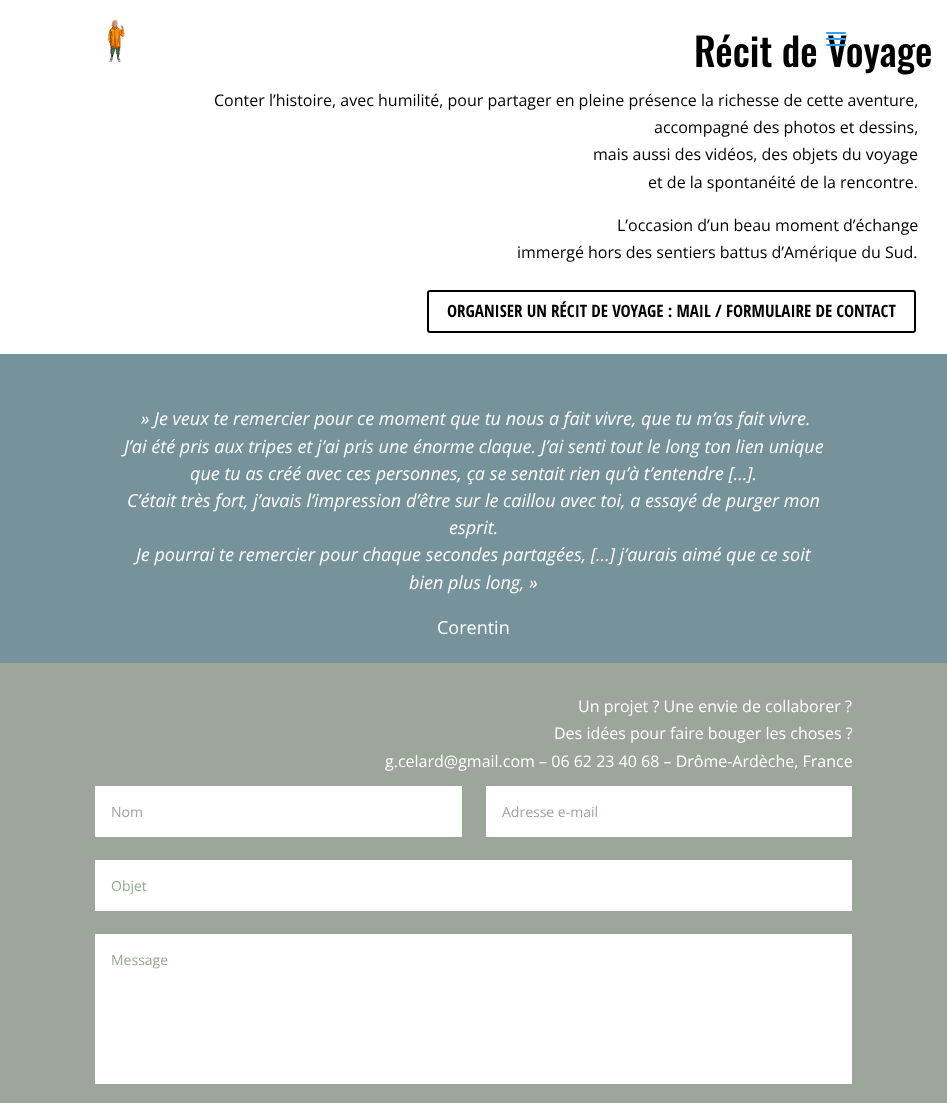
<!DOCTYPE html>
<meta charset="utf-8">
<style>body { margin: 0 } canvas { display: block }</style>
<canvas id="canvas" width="947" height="1103"></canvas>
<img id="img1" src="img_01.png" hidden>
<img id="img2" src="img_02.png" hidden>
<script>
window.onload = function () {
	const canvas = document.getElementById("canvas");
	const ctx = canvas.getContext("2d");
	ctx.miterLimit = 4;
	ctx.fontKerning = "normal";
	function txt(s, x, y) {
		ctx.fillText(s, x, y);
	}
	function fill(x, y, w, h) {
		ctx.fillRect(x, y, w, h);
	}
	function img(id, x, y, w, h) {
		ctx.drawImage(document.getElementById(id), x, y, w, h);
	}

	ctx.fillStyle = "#FFFFFF";
	fill(0, 0, 947, 1103);
	img("img1", 108, 19, 17, 43);
	ctx.beginPath();
	ctx.roundRect(428, 291, 487, 41, 2);
	ctx.strokeStyle = "#000000";
	ctx.lineWidth = 2;
	ctx.stroke();
	ctx.fillStyle = "#76929B";
	fill(0, 354, 947, 309);
	ctx.fillStyle = "#9CA69A";
	fill(0, 663, 947, 440);
	ctx.fillStyle = "#FFFFFF";
	fill(95, 786, 367, 51);
	fill(486, 786, 366, 51);
	fill(95, 860, 757, 51);
	fill(95, 934, 757, 150);
	ctx.font = "500 39px Oswald";
	ctx.fillStyle = "#000000";
	txt("Récit de Voyage", 694, 67);
	img("img2", 826, 32, 20, 14);
	ctx.font = "16px Open Sans";
	txt("Conter l’histoire, avec humilité, pour partager en pleine présence la richesse de cette aventure,", 214, 106);
	txt("accompagné des photos et dessins,", 654, 133);
	txt("mais aussi des vidéos, des objets du voyage", 593, 160);
	txt("et de la spontanéité de la rencontre.", 648, 188);
	txt("L’occasion d’un beau moment d’échange", 617, 231);
	txt("immergé hors des sentiers battus d’Amérique du Sud.", 517, 258);
	ctx.font = "bold 17px Open Sans Condensed";
	txt("ORGANISER UN RÉCIT DE VOYAGE : MAIL / FORMULAIRE DE CONTACT", 447, 317);
	ctx.font = "italic 18px Open Sans";
	ctx.fillStyle = "#FFFFFF";
	txt("» Je veux te remercier pour ce moment que tu nous a fait vivre, que tu m’as fait vivre.", 141, 425);
	txt("J’ai été pris aux tripes et j’ai pris une énorme claque. J’ai senti tout le long ton lien unique", 124, 453);
	txt("que tu as créé avec ces personnes, ça se sentait rien qu’à t’entendre […].", 190, 480);
	txt("C’était très fort, j’avais l’impression d’être sur le caillou avec toi, a essayé de purger mon", 127, 507);
	txt("esprit.", 449, 534);
	txt("Je pourrai te remercier pour chaque secondes partagées, […] j’aurais aimé que ce soit", 136, 561);
	txt("bien plus long, »", 409, 589);
	ctx.font = "18px Open Sans";
	txt("Corentin", 437, 634);
	ctx.font = "16px Open Sans";
	txt("Un projet ? Une envie de collaborer ?", 578, 712);
	txt("Des idées pour faire bouger les choses ?", 554, 739);
	txt("g.celard@gmail.com – 06 62 23 40 68 – Drôme-Ardèche, France", 385, 767);
	ctx.font = "14px Open Sans";
	ctx.fillStyle = "#9CA69A";
	txt("Nom", 111, 817);
	txt("Adresse e-mail", 502, 817);
	txt("Objet", 111, 891);
	txt("Message", 111, 965);
};
</script>
